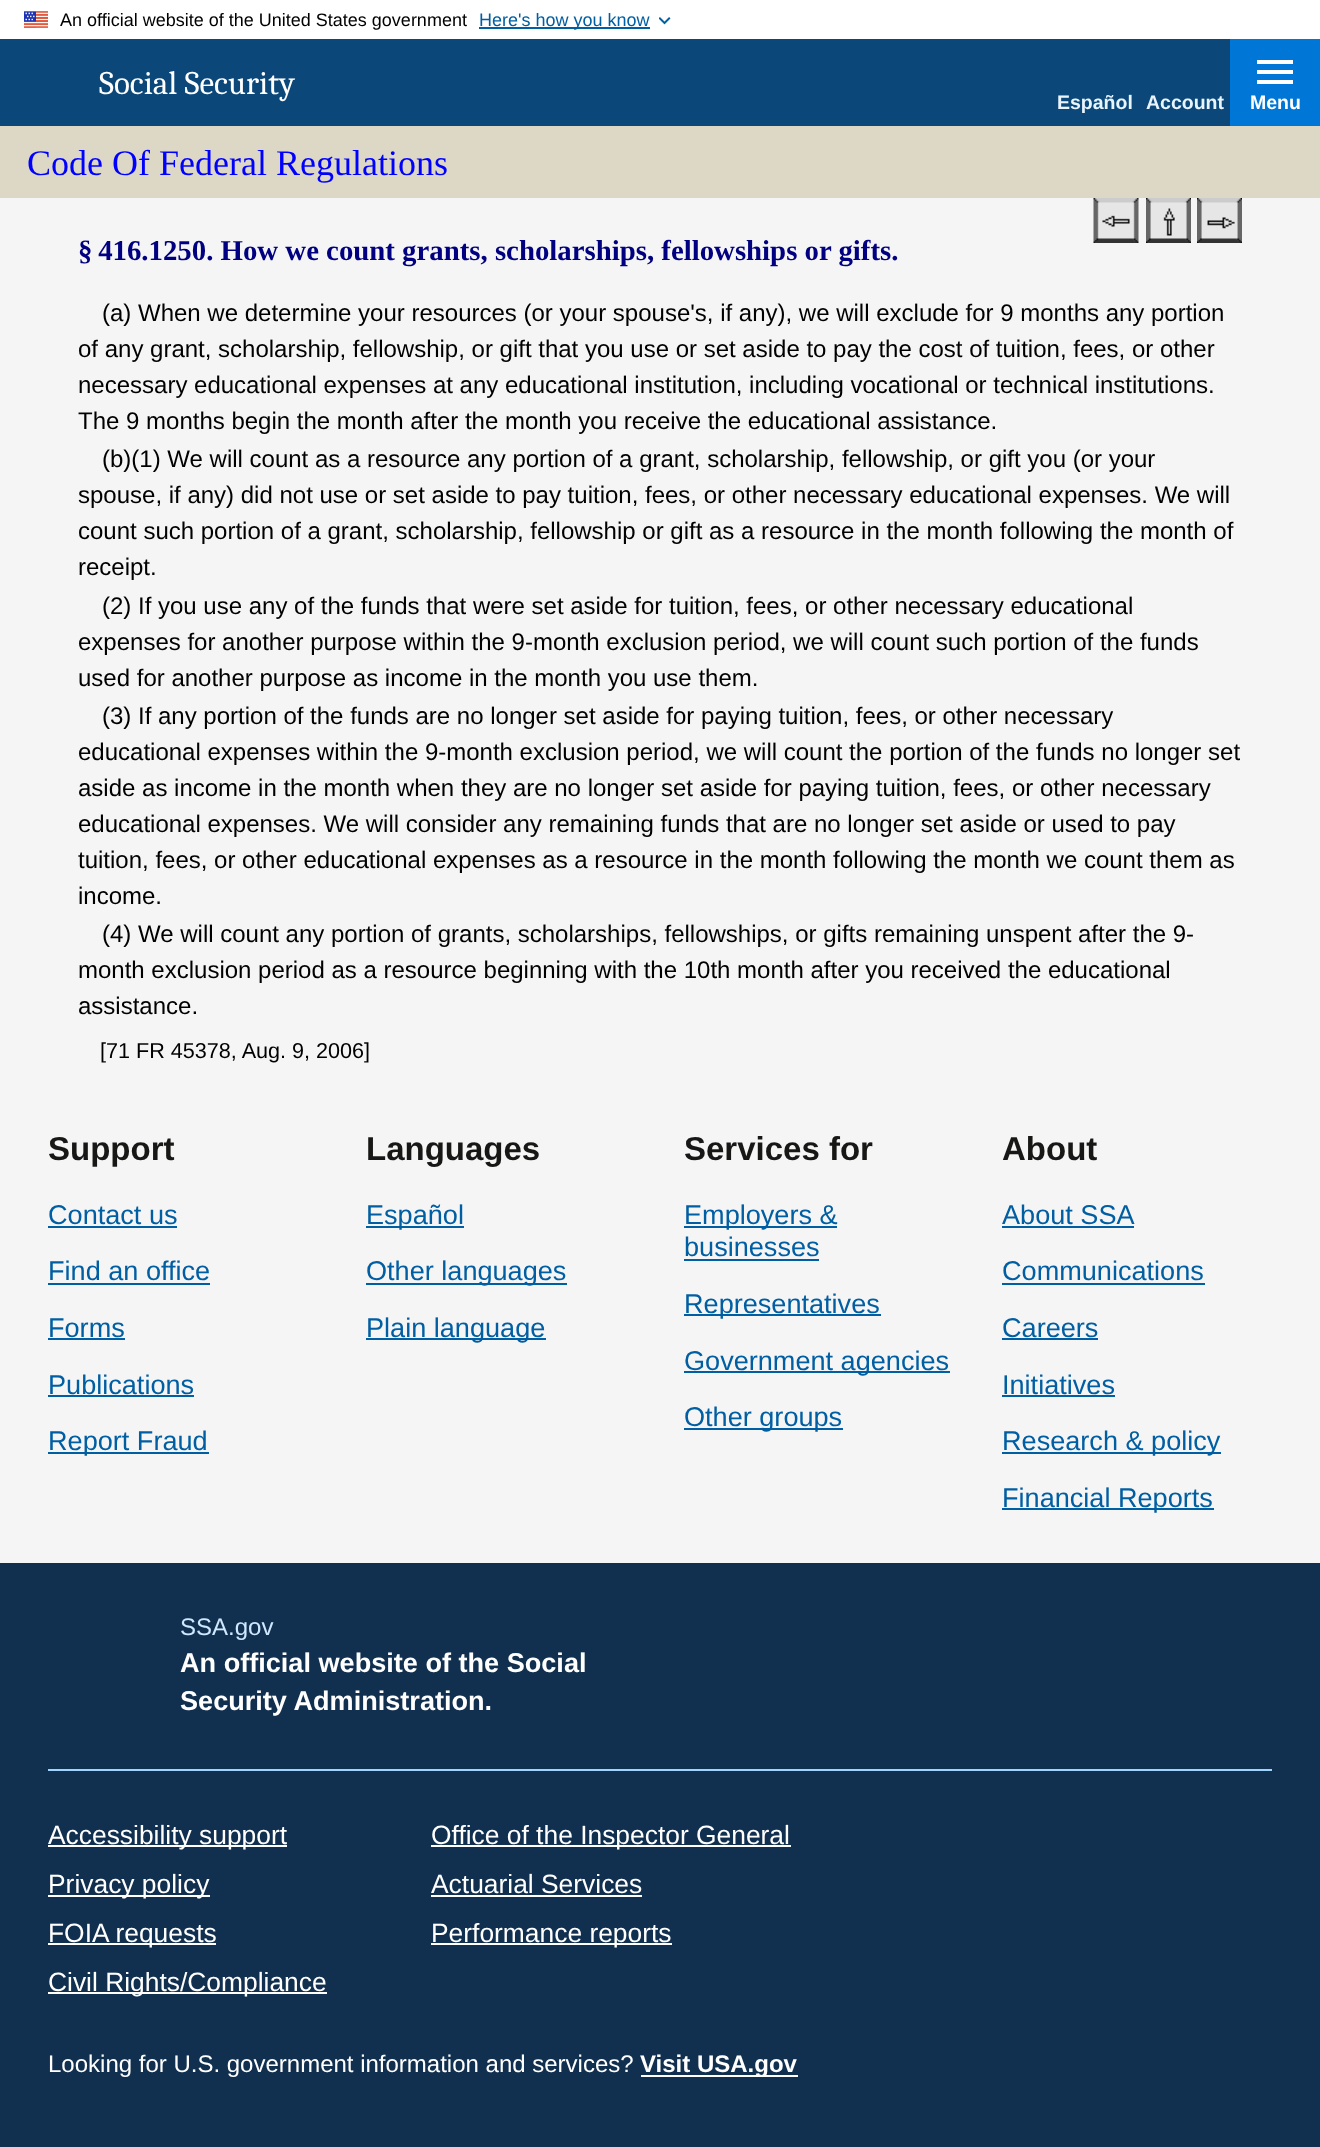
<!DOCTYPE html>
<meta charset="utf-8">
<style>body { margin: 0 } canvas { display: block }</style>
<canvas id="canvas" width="1320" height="2147"></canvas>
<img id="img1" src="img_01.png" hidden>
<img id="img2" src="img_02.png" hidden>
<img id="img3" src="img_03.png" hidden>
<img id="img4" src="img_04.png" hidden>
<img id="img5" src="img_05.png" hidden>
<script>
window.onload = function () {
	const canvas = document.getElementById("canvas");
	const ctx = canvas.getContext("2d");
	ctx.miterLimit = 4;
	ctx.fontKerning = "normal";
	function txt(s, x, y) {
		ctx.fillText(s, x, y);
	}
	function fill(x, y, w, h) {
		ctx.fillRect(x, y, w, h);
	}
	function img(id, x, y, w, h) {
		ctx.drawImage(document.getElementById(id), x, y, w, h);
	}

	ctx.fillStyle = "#F5F5F5";
	fill(0, 0, 1320, 2147);
	ctx.fillStyle = "#FFFFFF";
	fill(0, 0, 1320, 39);
	img("img1", 24, 11, 24, 17);
	ctx.fillStyle = "#005EA2";
	fill(479, 27, 171, 2);
	img("img2", 659, 17, 12, 8);
	ctx.fillStyle = "#0B4778";
	fill(0, 39, 1230, 87);
	ctx.fillStyle = "#0076D6";
	fill(1230, 39, 90, 87);
	ctx.fillStyle = "#FFFFFF";
	ctx.beginPath();
	ctx.moveTo(1257, 84);
	ctx.lineTo(1293, 84);
	ctx.lineTo(1293, 80);
	ctx.lineTo(1257, 80);
	ctx.closePath();
	ctx.moveTo(1257, 74);
	ctx.lineTo(1293, 74);
	ctx.lineTo(1293, 70);
	ctx.lineTo(1257, 70);
	ctx.closePath();
	ctx.moveTo(1257, 60);
	ctx.lineTo(1257, 64);
	ctx.lineTo(1293, 64);
	ctx.lineTo(1293, 60);
	ctx.closePath();
	ctx.fill("evenodd");
	ctx.fillStyle = "#DDD7C5";
	fill(0, 126, 1320, 72);
	img("img3", 1093, 198, 46, 45);
	img("img4", 1146, 198, 45, 45);
	img("img5", 1197, 198, 45, 45);
	ctx.fillStyle = "#005EA2";
	fill(48, 1226, 129, 2);
	fill(48, 1283, 162, 2);
	fill(48, 1338, 77, 2);
	fill(48, 1395, 146, 2);
	fill(48, 1452, 161, 2);
	fill(366, 1226, 98, 2);
	fill(366, 1283, 201, 2);
	fill(366, 1338, 180, 2);
	fill(684, 1226, 153, 2);
	fill(684, 1259, 135, 2);
	fill(684, 1314, 197, 2);
	fill(684, 1371, 266, 2);
	fill(684, 1428, 159, 2);
	fill(1002, 1226, 132, 2);
	fill(1002, 1283, 203, 2);
	fill(1002, 1338, 96, 2);
	fill(1002, 1395, 113, 2);
	fill(1002, 1452, 219, 2);
	fill(1002, 1508, 212, 2);
	ctx.fillStyle = "#112F4E";
	fill(0, 1563, 1320, 584);
	ctx.fillStyle = "#A1D3FF";
	fill(48, 1769, 1224, 2);
	ctx.fillStyle = "#FFFFFF";
	fill(48, 1845, 239, 2);
	fill(431, 1845, 360, 2);
	fill(48, 1895, 162, 2);
	fill(431, 1895, 211, 2);
	fill(48, 1943, 168, 2);
	fill(431, 1943, 241, 2);
	fill(48, 1992, 279, 2);
	fill(641, 2075, 157, 2);
	ctx.font = "18px Liberation Sans";
	ctx.fillStyle = "#000000";
	txt("An official website of the United States government", 60, 26);
	ctx.fillStyle = "#005EA2";
	txt("Here's how you know", 479, 26);
	ctx.font = "33px Caladea";
	ctx.fillStyle = "#FFFFFF";
	txt("Social Security", 99, 94);
	ctx.font = "bold 19.5px Liberation Sans";
	ctx.fillStyle = "#E8F5FF";
	txt("Español", 1057, 109);
	txt("Account", 1146, 109);
	ctx.fillStyle = "#FFFFFF";
	txt("Menu", 1250, 109);
	ctx.font = "36px Liberation Serif";
	ctx.fillStyle = "#0000FF";
	txt("Code Of Federal Regulations", 27, 175);
	ctx.font = "bold 28.8px Liberation Serif";
	ctx.fillStyle = "#000080";
	txt("§ 416.1250. How we count grants, scholarships, fellowships or gifts.", 78, 260);
	ctx.font = "24px Liberation Sans";
	ctx.fillStyle = "#000000";
	txt("(a) When we determine your resources (or your spouse's, if any), we will exclude for 9 months any portion", 102, 321);
	txt("of any grant, scholarship, fellowship, or gift that you use or set aside to pay the cost of tuition, fees, or other", 78, 357);
	txt("necessary educational expenses at any educational institution, including vocational or technical institutions.", 78, 393);
	txt("The 9 months begin the month after the month you receive the educational assistance.", 78, 429);
	txt("(b)(1) We will count as a resource any portion of a grant, scholarship, fellowship, or gift you (or your", 102, 467);
	txt("spouse, if any) did not use or set aside to pay tuition, fees, or other necessary educational expenses. We will", 78, 503);
	txt("count such portion of a grant, scholarship, fellowship or gift as a resource in the month following the month of", 78, 539);
	txt("receipt.", 78, 575);
	txt("(2) If you use any of the funds that were set aside for tuition, fees, or other necessary educational", 102, 614);
	txt("expenses for another purpose within the 9-month exclusion period, we will count such portion of the funds", 78, 650);
	txt("used for another purpose as income in the month you use them.", 78, 686);
	txt("(3) If any portion of the funds are no longer set aside for paying tuition, fees, or other necessary", 102, 724);
	txt("educational expenses within the 9-month exclusion period, we will count the portion of the funds no longer set", 78, 760);
	txt("aside as income in the month when they are no longer set aside for paying tuition, fees, or other necessary", 78, 796);
	txt("educational expenses. We will consider any remaining funds that are no longer set aside or used to pay", 78, 832);
	txt("tuition, fees, or other educational expenses as a resource in the month following the month we count them as", 78, 868);
	txt("income.", 78, 904);
	txt("(4) We will count any portion of grants, scholarships, fellowships, or gifts remaining unspent after the 9-", 102, 942);
	txt("month exclusion period as a resource beginning with the 10th month after you received the educational", 78, 978);
	txt("assistance.", 78, 1014);
	ctx.font = "21.6px Liberation Sans";
	txt("[71 FR 45378, Aug. 9, 2006]", 100, 1058);
	ctx.font = "bold 33px Liberation Sans";
	ctx.fillStyle = "#171716";
	txt("Support", 48, 1160);
	ctx.font = "27.1px Liberation Sans";
	ctx.fillStyle = "#005EA2";
	txt("Contact us", 48, 1224);
	txt("Find an office", 48, 1280);
	txt("Forms", 48, 1337);
	txt("Publications", 48, 1394);
	txt("Report Fraud", 48, 1450);
	ctx.font = "bold 33px Liberation Sans";
	ctx.fillStyle = "#171716";
	txt("Languages", 366, 1160);
	ctx.font = "27.1px Liberation Sans";
	ctx.fillStyle = "#005EA2";
	txt("Español", 366, 1224);
	txt("Other languages", 366, 1280);
	txt("Plain language", 366, 1337);
	ctx.font = "bold 33px Liberation Sans";
	ctx.fillStyle = "#171716";
	txt("Services for", 684, 1160);
	ctx.font = "27.1px Liberation Sans";
	ctx.fillStyle = "#005EA2";
	txt("Employers &", 684, 1224);
	txt("businesses", 684, 1256);
	txt("Representatives", 684, 1313);
	txt("Government agencies", 684, 1370);
	txt("Other groups", 684, 1426);
	ctx.font = "bold 33px Liberation Sans";
	ctx.fillStyle = "#171716";
	txt("About", 1002, 1160);
	ctx.font = "27.1px Liberation Sans";
	ctx.fillStyle = "#005EA2";
	txt("About SSA", 1002, 1224);
	txt("Communications", 1002, 1280);
	txt("Careers", 1002, 1337);
	txt("Initiatives", 1002, 1394);
	txt("Research & policy", 1002, 1450);
	txt("Financial Reports", 1002, 1507);
	ctx.font = "24px Liberation Sans";
	ctx.fillStyle = "#CFE8FF";
	txt("SSA.gov", 180, 1635);
	ctx.font = "bold 27.1px Liberation Sans";
	ctx.fillStyle = "#FFFFFF";
	txt("An official website of the Social", 180, 1672);
	txt("Security Administration.", 180, 1710);
	ctx.font = "26.4px Liberation Sans";
	txt("Accessibility support", 48, 1844);
	txt("Office of the Inspector General", 431, 1844);
	txt("Privacy policy", 48, 1893);
	txt("Actuarial Services", 431, 1893);
	txt("FOIA requests", 48, 1942);
	txt("Performance reports", 431, 1942);
	txt("Civil Rights/Compliance", 48, 1991);
	ctx.font = "24px Liberation Sans";
	txt("Looking for U.S. government information and services?", 48, 2072);
	ctx.font = "bold 24px Liberation Sans";
	txt("Visit USA.gov", 640, 2072);
};
</script>
